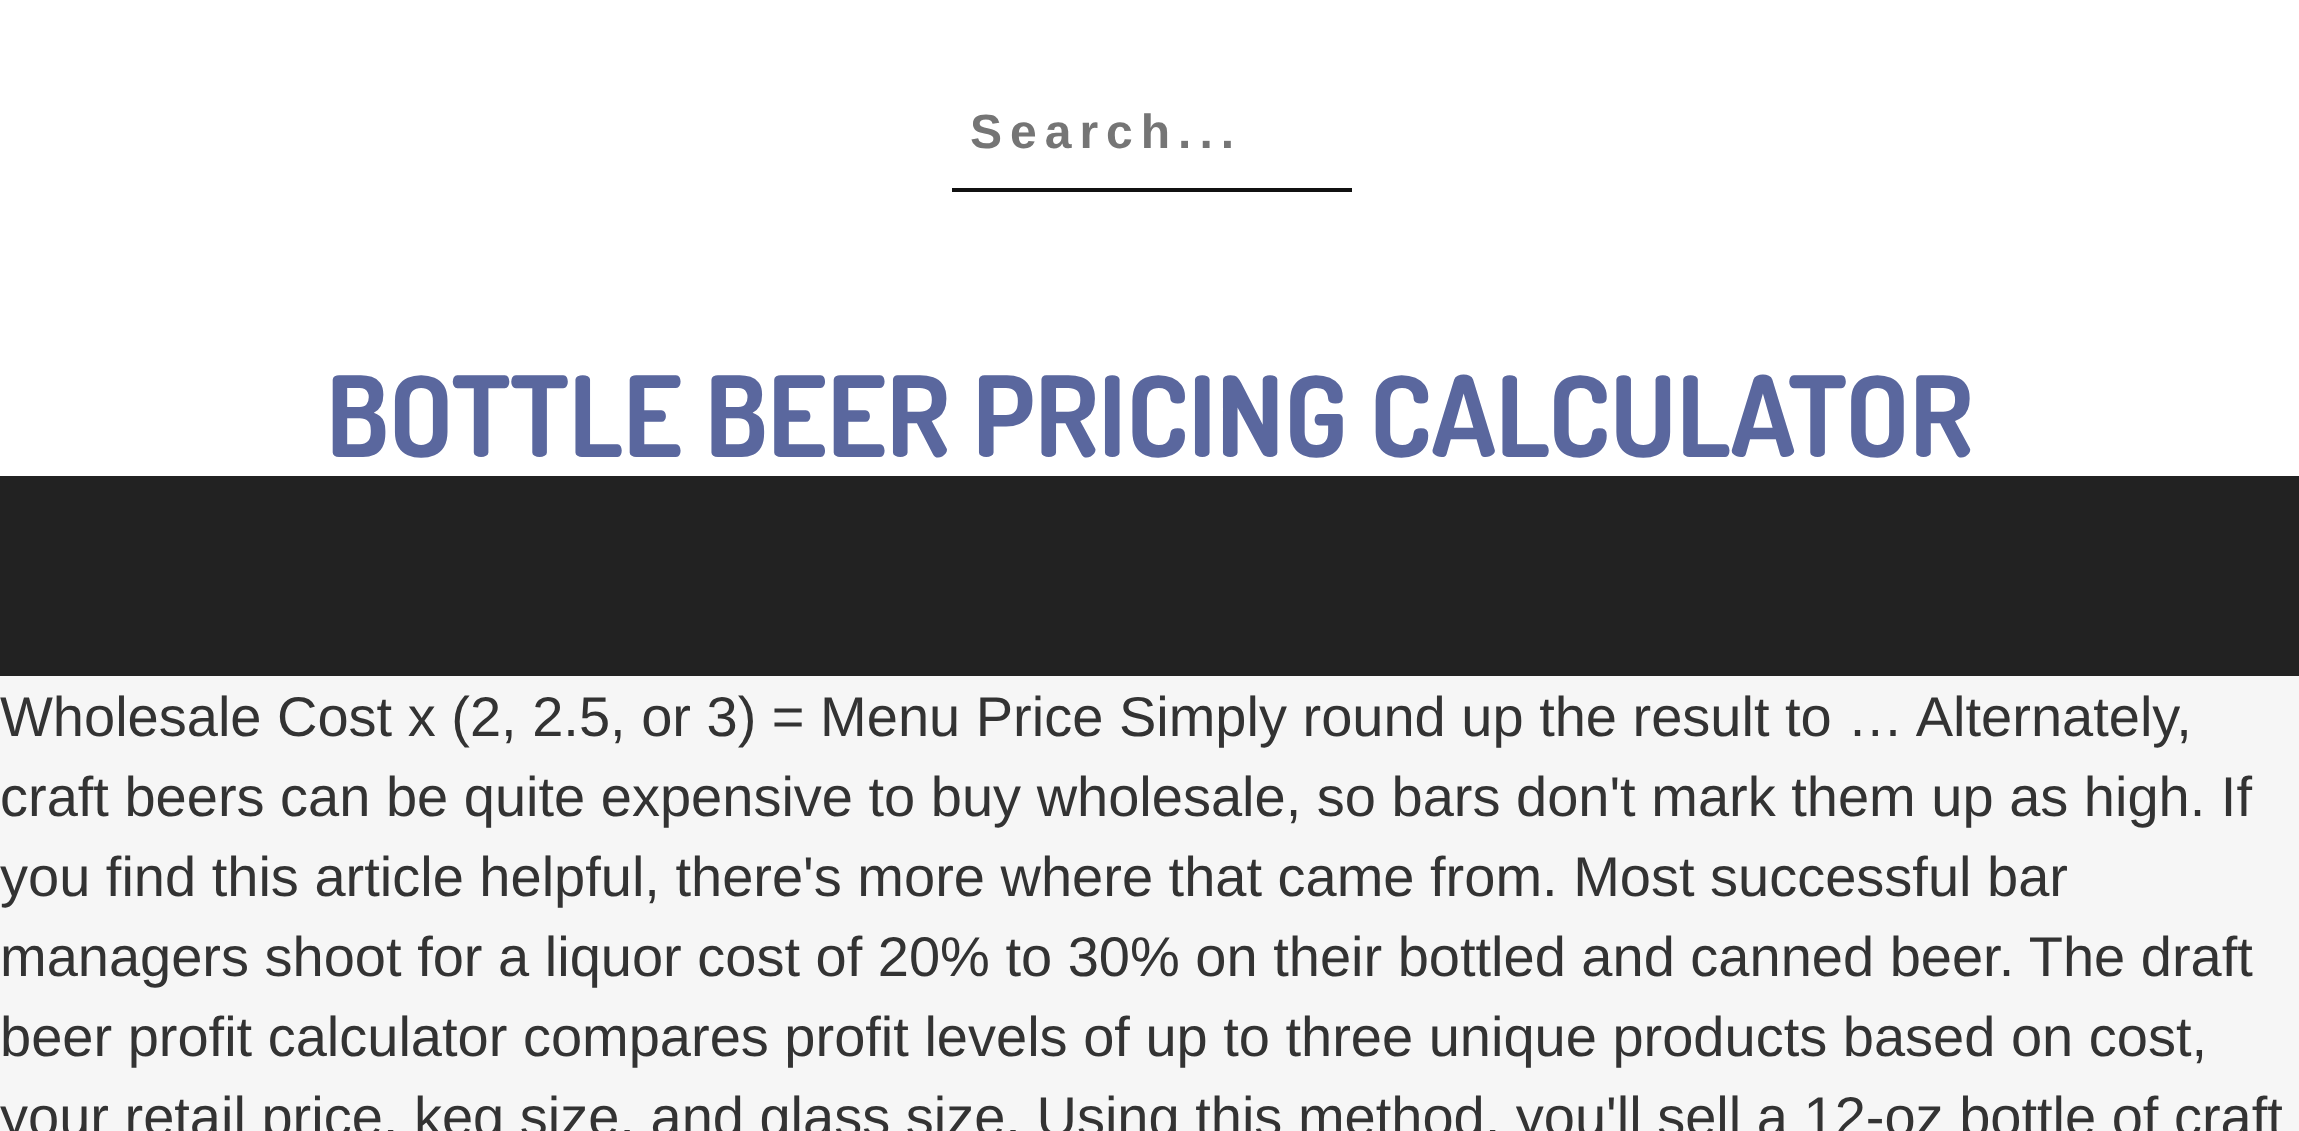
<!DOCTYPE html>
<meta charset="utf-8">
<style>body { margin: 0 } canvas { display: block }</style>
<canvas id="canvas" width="2299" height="1131"></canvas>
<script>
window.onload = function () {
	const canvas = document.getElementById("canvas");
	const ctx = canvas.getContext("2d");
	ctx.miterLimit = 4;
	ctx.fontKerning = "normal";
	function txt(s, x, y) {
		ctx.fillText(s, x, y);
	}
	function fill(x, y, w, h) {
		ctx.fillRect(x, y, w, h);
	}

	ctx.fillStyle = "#F6F6F6";
	fill(0, 0, 2299, 1131);
	ctx.fillStyle = "#FFFFFF";
	fill(0, 0, 2299, 476);
	ctx.fillStyle = "#111111";
	fill(952, 188, 400, 4);
	ctx.fillStyle = "#222222";
	fill(0, 476, 2299, 200);
	ctx.letterSpacing = "8px";
	ctx.font = "bold 48px Liberation Sans";
	ctx.fillStyle = "#757575";
	txt("Search...", 970, 148);
	ctx.letterSpacing = "0px";
	ctx.font = "bold 112px Dosis";
	ctx.fillStyle = "#5A679E";
	txt("BOTTLE BEER PRICING CALCULATOR", 326, 457);
	ctx.font = "56px Liberation Sans";
	ctx.fillStyle = "#333333";
	txt("Wholesale Cost x (2, 2.5, or 3) = Menu Price Simply round up the result to … Alternately,", 0, 736);
	txt("craft beers can be quite expensive to buy wholesale, so bars don't mark them up as high. If", 0, 816);
	txt("you find this article helpful, there's more where that came from. Most successful bar", 0, 896);
	txt("managers shoot for a liquor cost of 20% to 30% on their bottled and canned beer. The draft", 0, 976);
	txt("beer profit calculator compares profit levels of up to three unique products based on cost,", 0, 1056);
	txt("your retail price, keg size, and glass size. Using this method, you'll sell a 12-oz bottle of craft", 0, 1136);
};
</script>
